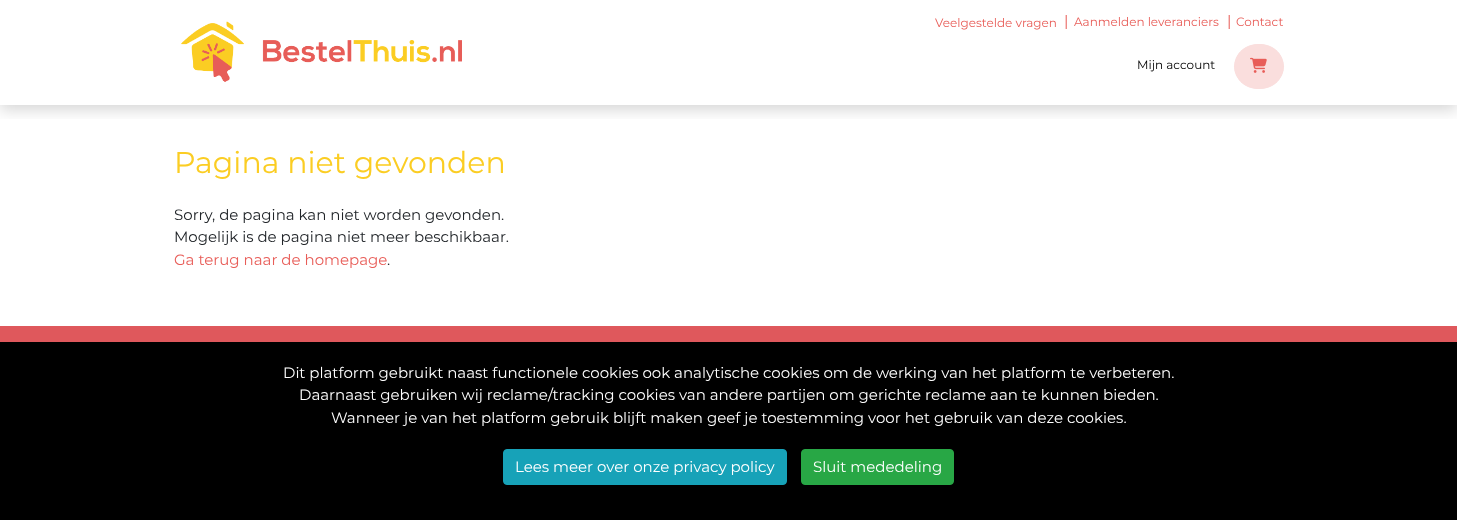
<!DOCTYPE html>
<meta charset="utf-8">
<style>body { margin: 0 } canvas { display: block }</style>
<canvas id="canvas" width="1457" height="520"></canvas>
<img id="img1" src="img_01.png" hidden>
<img id="img2" src="img_02.png" hidden>
<script>
window.onload = function () {
	const canvas = document.getElementById("canvas");
	const ctx = canvas.getContext("2d");
	ctx.miterLimit = 4;
	ctx.fontKerning = "normal";
	function txt(s, x, y) {
		ctx.fillText(s, x, y);
	}
	function fill(x, y, w, h) {
		ctx.fillRect(x, y, w, h);
	}
	function img(id, x, y, w, h) {
		ctx.drawImage(document.getElementById(id), x, y, w, h);
	}

	ctx.fillStyle = "#FFFFFF";
	fill(0, 0, 1457, 520);
	ctx.save();
	ctx.beginPath();
	ctx.rect(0, 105, 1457, 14);
	ctx.clip();
	ctx.fillStyle = "rgba(0, 0, 0, 0.16)";
	ctx.filter = "blur(7.5px)";
	ctx.beginPath();
	ctx.rect(0, 5, 1457, 105);
	ctx.fill();
	ctx.filter = "none";
	ctx.restore();
	img("img1", 181, 21, 281, 61);
	ctx.fillStyle = "#FADEDD";
	ctx.beginPath();
	ctx.ellipse(1259, 66.5, 25, 22.5, 0, 0, Math.PI * 2);
	ctx.fill();
	ctx.beginPath();
	ctx.moveTo(1259, 44.5);
	ctx.bezierCurveTo(1291, 44.5, 1291, 88.5, 1259, 88.5);
	ctx.bezierCurveTo(1227, 88.5, 1227, 44.5, 1259, 44.5);
	ctx.closePath();
	ctx.strokeStyle = "#FADEDD";
	ctx.stroke();
	img("img2", 1250, 57, 17, 16);
	ctx.fillStyle = "#DF585C";
	fill(0, 326, 1457, 16);
	ctx.fillStyle = "#000000";
	fill(0, 342, 1457, 178);
	ctx.fillStyle = "#17A2B8";
	ctx.beginPath();
	ctx.roundRect(503.5, 449.5, 283, 35, 3.5);
	ctx.fill();
	ctx.strokeStyle = "#17A2B8";
	ctx.stroke();
	ctx.fillStyle = "#28A745";
	ctx.beginPath();
	ctx.roundRect(801.5, 449.5, 152, 35, 3.5);
	ctx.fill();
	ctx.strokeStyle = "#28A745";
	ctx.stroke();
	ctx.font = "12px Montserrat";
	ctx.fillStyle = "#E85D58";
	txt("Veelgestelde vragen", 935, 27);
	ctx.font = "15px Montserrat";
	txt("|", 1064, 26);
	ctx.font = "12px Montserrat";
	txt("Aanmelden leveranciers", 1074, 26);
	ctx.font = "15px Montserrat";
	txt("|", 1227, 26);
	ctx.font = "12px Montserrat";
	txt("Contact", 1236, 26);
	ctx.fillStyle = "#000000";
	txt("Mijn account", 1137, 69);
	ctx.font = "30px Montserrat";
	ctx.fillStyle = "#FBCD23";
	txt("Pagina niet gevonden", 174, 173);
	ctx.font = "15px Montserrat";
	ctx.fillStyle = "#212529";
	txt("Sorry, de pagina kan niet worden gevonden.", 174, 220);
	txt("Mogelijk is de pagina niet meer beschikbaar.", 174, 242);
	ctx.fillStyle = "#E85D58";
	txt("Ga terug naar de homepage", 174, 265);
	ctx.fillStyle = "#212529";
	txt(".", 387, 265);
	ctx.fillStyle = "#FFFFFF";
	txt("Dit platform gebruikt naast functionele cookies ook analytische cookies om de werking van het platform te verbeteren.", 283, 378);
	txt("Daarnaast gebruiken wij reclame/tracking cookies van andere partijen om gerichte reclame aan te kunnen bieden.", 299, 400);
	txt("Wanneer je van het platform gebruik blijft maken geef je toestemming voor het gebruik van deze cookies.", 331, 423);
	txt("Lees meer over onze privacy policy", 515, 472);
	txt("Sluit mededeling", 813, 472);
};
</script>
